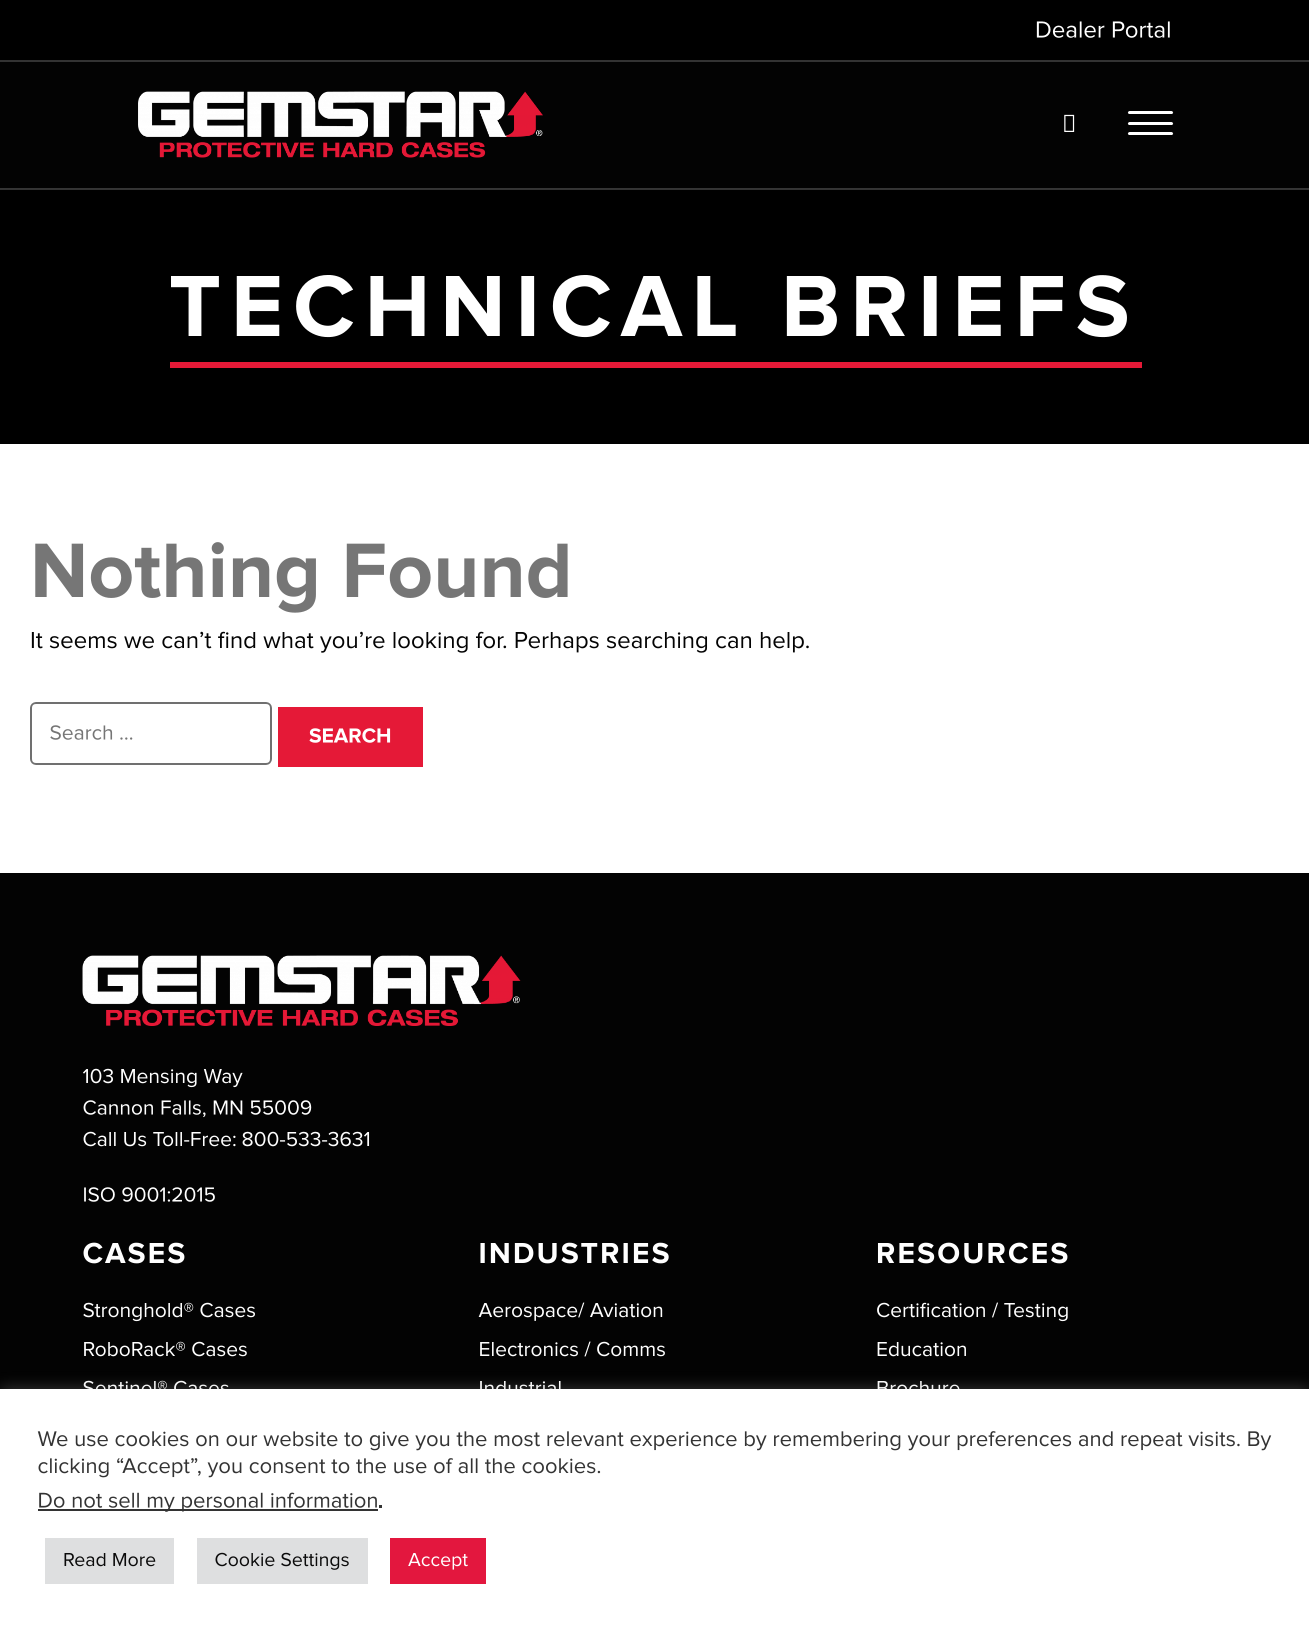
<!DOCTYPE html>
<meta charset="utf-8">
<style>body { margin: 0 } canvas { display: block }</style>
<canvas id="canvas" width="1309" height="1629"></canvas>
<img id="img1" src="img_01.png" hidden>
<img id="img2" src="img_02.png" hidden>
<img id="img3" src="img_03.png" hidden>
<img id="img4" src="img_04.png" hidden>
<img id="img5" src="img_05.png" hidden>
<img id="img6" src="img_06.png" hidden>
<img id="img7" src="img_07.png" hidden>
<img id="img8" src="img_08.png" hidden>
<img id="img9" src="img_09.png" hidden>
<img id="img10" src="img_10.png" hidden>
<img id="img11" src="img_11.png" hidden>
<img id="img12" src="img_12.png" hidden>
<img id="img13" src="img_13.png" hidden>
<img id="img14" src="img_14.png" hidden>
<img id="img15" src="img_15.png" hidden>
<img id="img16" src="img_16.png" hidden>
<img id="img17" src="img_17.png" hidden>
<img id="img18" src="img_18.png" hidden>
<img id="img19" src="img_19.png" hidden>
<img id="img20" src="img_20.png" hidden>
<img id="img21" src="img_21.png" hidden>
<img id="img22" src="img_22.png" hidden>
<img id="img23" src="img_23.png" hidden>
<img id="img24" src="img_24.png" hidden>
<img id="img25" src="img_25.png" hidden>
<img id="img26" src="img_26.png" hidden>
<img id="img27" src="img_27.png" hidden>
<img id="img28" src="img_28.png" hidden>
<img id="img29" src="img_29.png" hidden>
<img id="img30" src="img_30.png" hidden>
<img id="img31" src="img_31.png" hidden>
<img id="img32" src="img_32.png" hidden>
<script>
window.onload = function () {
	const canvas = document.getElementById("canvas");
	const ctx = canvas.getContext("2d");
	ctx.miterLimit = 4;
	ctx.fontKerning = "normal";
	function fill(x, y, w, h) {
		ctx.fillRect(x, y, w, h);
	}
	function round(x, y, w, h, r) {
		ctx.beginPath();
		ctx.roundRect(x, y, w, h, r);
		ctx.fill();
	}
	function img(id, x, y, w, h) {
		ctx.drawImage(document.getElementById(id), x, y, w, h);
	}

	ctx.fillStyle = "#FFFFFF";
	fill(0, 0, 1309, 1629);
	ctx.fillStyle = "#030303";
	fill(0, 62, 1309, 126);
	ctx.fillStyle = "#353535";
	fill(0, 188, 1309, 1);
	ctx.fillStyle = "#000000";
	fill(0, 0, 1309, 60);
	ctx.fillStyle = "#333333";
	fill(0, 60, 1309, 2);
	img("img1", 1036, 21, 134, 17);
	img("img2", 138, 91, 405, 67);
	img("img3", 1064, 114, 11, 18);
	ctx.fillStyle = "#FFFFFF";
	round(1128, 111, 45, 3, 1.5);
	round(1128, 122, 45, 3, 1.5);
	round(1128, 132, 45, 3, 1.5);
	ctx.fillStyle = "#000000";
	fill(0, 190, 1309, 254);
	ctx.fillStyle = "#333333";
	fill(0, 189, 1309, 1);
	ctx.fillStyle = "#E51937";
	fill(170, 362, 972, 6);
	img("img4", 171, 275, 956, 63);
	img("img5", 35, 542, 533, 71);
	img("img6", 31, 631, 778, 22);
	ctx.beginPath();
	ctx.roundRect(31, 703, 240, 61, 5);
	ctx.strokeStyle = "#707070";
	ctx.lineWidth = 2;
	ctx.stroke();
	img("img7", 50, 725, 83, 15);
	fill(278, 707, 145, 60);
	img("img8", 309, 728, 82, 15);
	ctx.fillStyle = "#030303";
	fill(0, 873, 1309, 516);
	img("img9", 82, 955, 439, 71);
	img("img10", 83, 1068, 160, 20);
	img("img11", 83, 1100, 229, 18);
	img("img12", 83, 1131, 153, 16);
	img("img13", 242, 1131, 128, 16);
	img("img14", 84, 1187, 131, 15);
	img("img15", 83, 1242, 102, 22);
	img("img16", 83, 1302, 172, 20);
	img("img17", 84, 1341, 163, 16);
	img("img18", 83, 1380, 146, 9);
	img("img19", 480, 1242, 189, 22);
	img("img20", 478, 1302, 185, 19);
	img("img21", 480, 1341, 185, 16);
	img("img22", 480, 1381, 81, 8);
	img("img23", 877, 1242, 191, 22);
	img("img24", 877, 1302, 191, 20);
	img("img25", 877, 1342, 89, 15);
	img("img26", 877, 1381, 83, 8);
	ctx.fillStyle = "rgba(172, 171, 171, 0.3)";
	ctx.filter = "blur(7.5px)";
	ctx.beginPath();
	ctx.rect(0, 1388, 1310, 240);
	ctx.fill();
	ctx.filter = "none";
	ctx.fillStyle = "#FFFFFF";
	fill(0, 1389, 1309, 240);
	img("img27", 37, 1431, 1235, 20);
	img("img28", 38, 1458, 563, 20);
	ctx.fillStyle = "#333333";
	fill(38, 1509, 340, 2);
	img("img29", 39, 1492, 338, 20);
	fill(379, 1505, 3, 3);
	ctx.fillStyle = "#DEDFE0";
	fill(45, 1538, 129, 46);
	img("img30", 64, 1553, 92, 14);
	fill(197, 1538, 171, 46);
	img("img31", 215, 1552, 134, 18);
	ctx.fillStyle = "#E3173E";
	fill(390, 1538, 96, 46);
	img("img32", 408, 1553, 60, 17);
};
</script>
